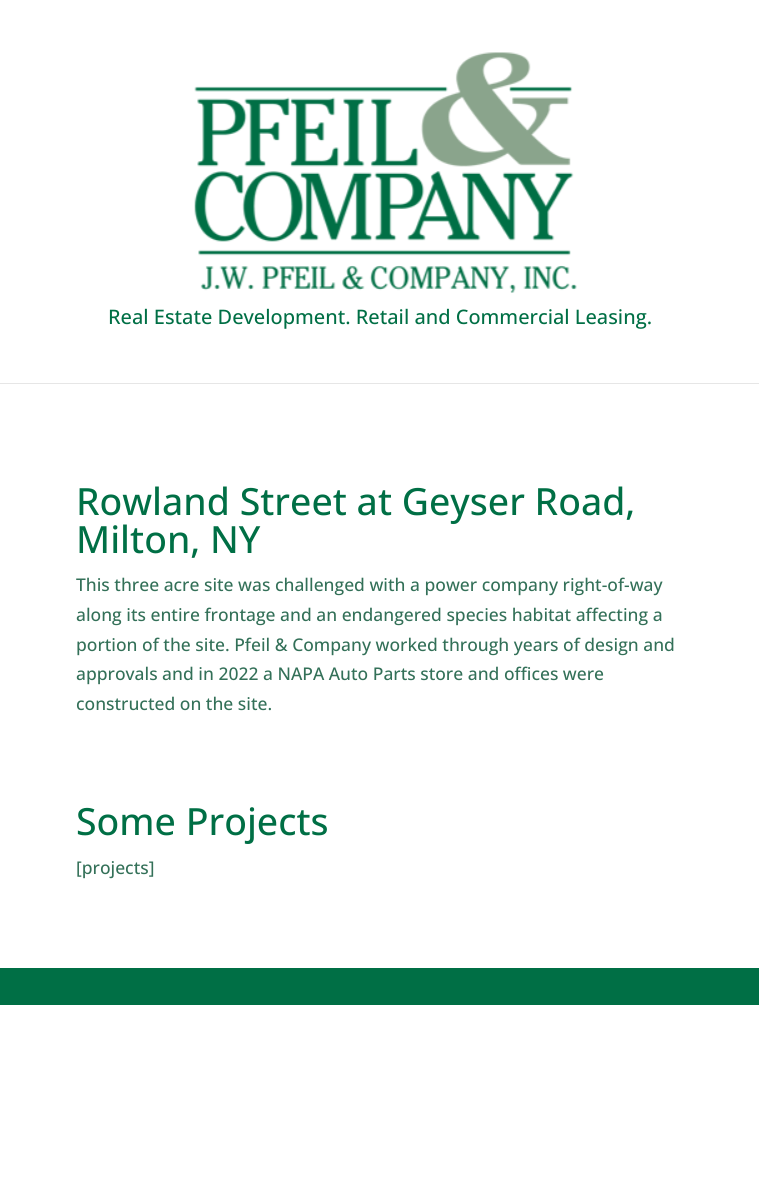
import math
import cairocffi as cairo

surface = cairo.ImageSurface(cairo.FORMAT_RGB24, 759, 1192)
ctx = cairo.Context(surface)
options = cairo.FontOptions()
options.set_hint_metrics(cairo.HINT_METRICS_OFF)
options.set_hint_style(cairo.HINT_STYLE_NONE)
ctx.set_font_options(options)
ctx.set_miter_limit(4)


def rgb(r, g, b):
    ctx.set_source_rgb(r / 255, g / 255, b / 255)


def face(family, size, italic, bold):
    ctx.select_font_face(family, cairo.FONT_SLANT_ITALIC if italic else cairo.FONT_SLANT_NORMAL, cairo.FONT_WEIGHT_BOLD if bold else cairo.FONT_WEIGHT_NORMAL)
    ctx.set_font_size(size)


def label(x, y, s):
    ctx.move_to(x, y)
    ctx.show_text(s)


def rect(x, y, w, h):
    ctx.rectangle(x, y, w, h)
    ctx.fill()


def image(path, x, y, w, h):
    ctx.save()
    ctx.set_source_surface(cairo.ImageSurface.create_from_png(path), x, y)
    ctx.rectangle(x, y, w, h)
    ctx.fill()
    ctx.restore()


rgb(255, 255, 255)
ctx.paint()
rgb(230, 230, 230)
rect(0, 383, 759, 1)
image('image0.png', 194, 52, 383, 241)
face('Open Sans Medium', 20, 0, 0)
rgb(0, 111, 69)
label(108, 324, 'Real Estate Development. Retail and Commercial Leasing.')
face('Open Sans Medium', 37.5, 0, 0)
label(76, 515, 'Rowland Street at Geyser Road,')
label(76, 553, 'Milton, NY')
face('Open Sans Medium', 17.5, 0, 0)
rgb(51, 112, 88)
label(76, 591, 'This three acre site was challenged with a power company right-of-way')
label(76, 621, 'along its entire frontage and an endangered species habitat affecting a')
label(76, 651, 'portion of the site. Pfeil & Company worked through years of design and')
label(76, 680, 'approvals and in 2022 a NAPA Auto Parts store and offices were')
label(76, 710, 'constructed on the site.')
face('Open Sans Medium', 37.5, 0, 0)
rgb(0, 111, 69)
label(76, 835, 'Some Projects')
face('Open Sans Medium', 17.5, 0, 0)
rgb(51, 112, 88)
label(76, 874, '[projects]')
rgb(0, 111, 69)
rect(0, 968, 759, 37)
surface.write_to_png('render.png')
